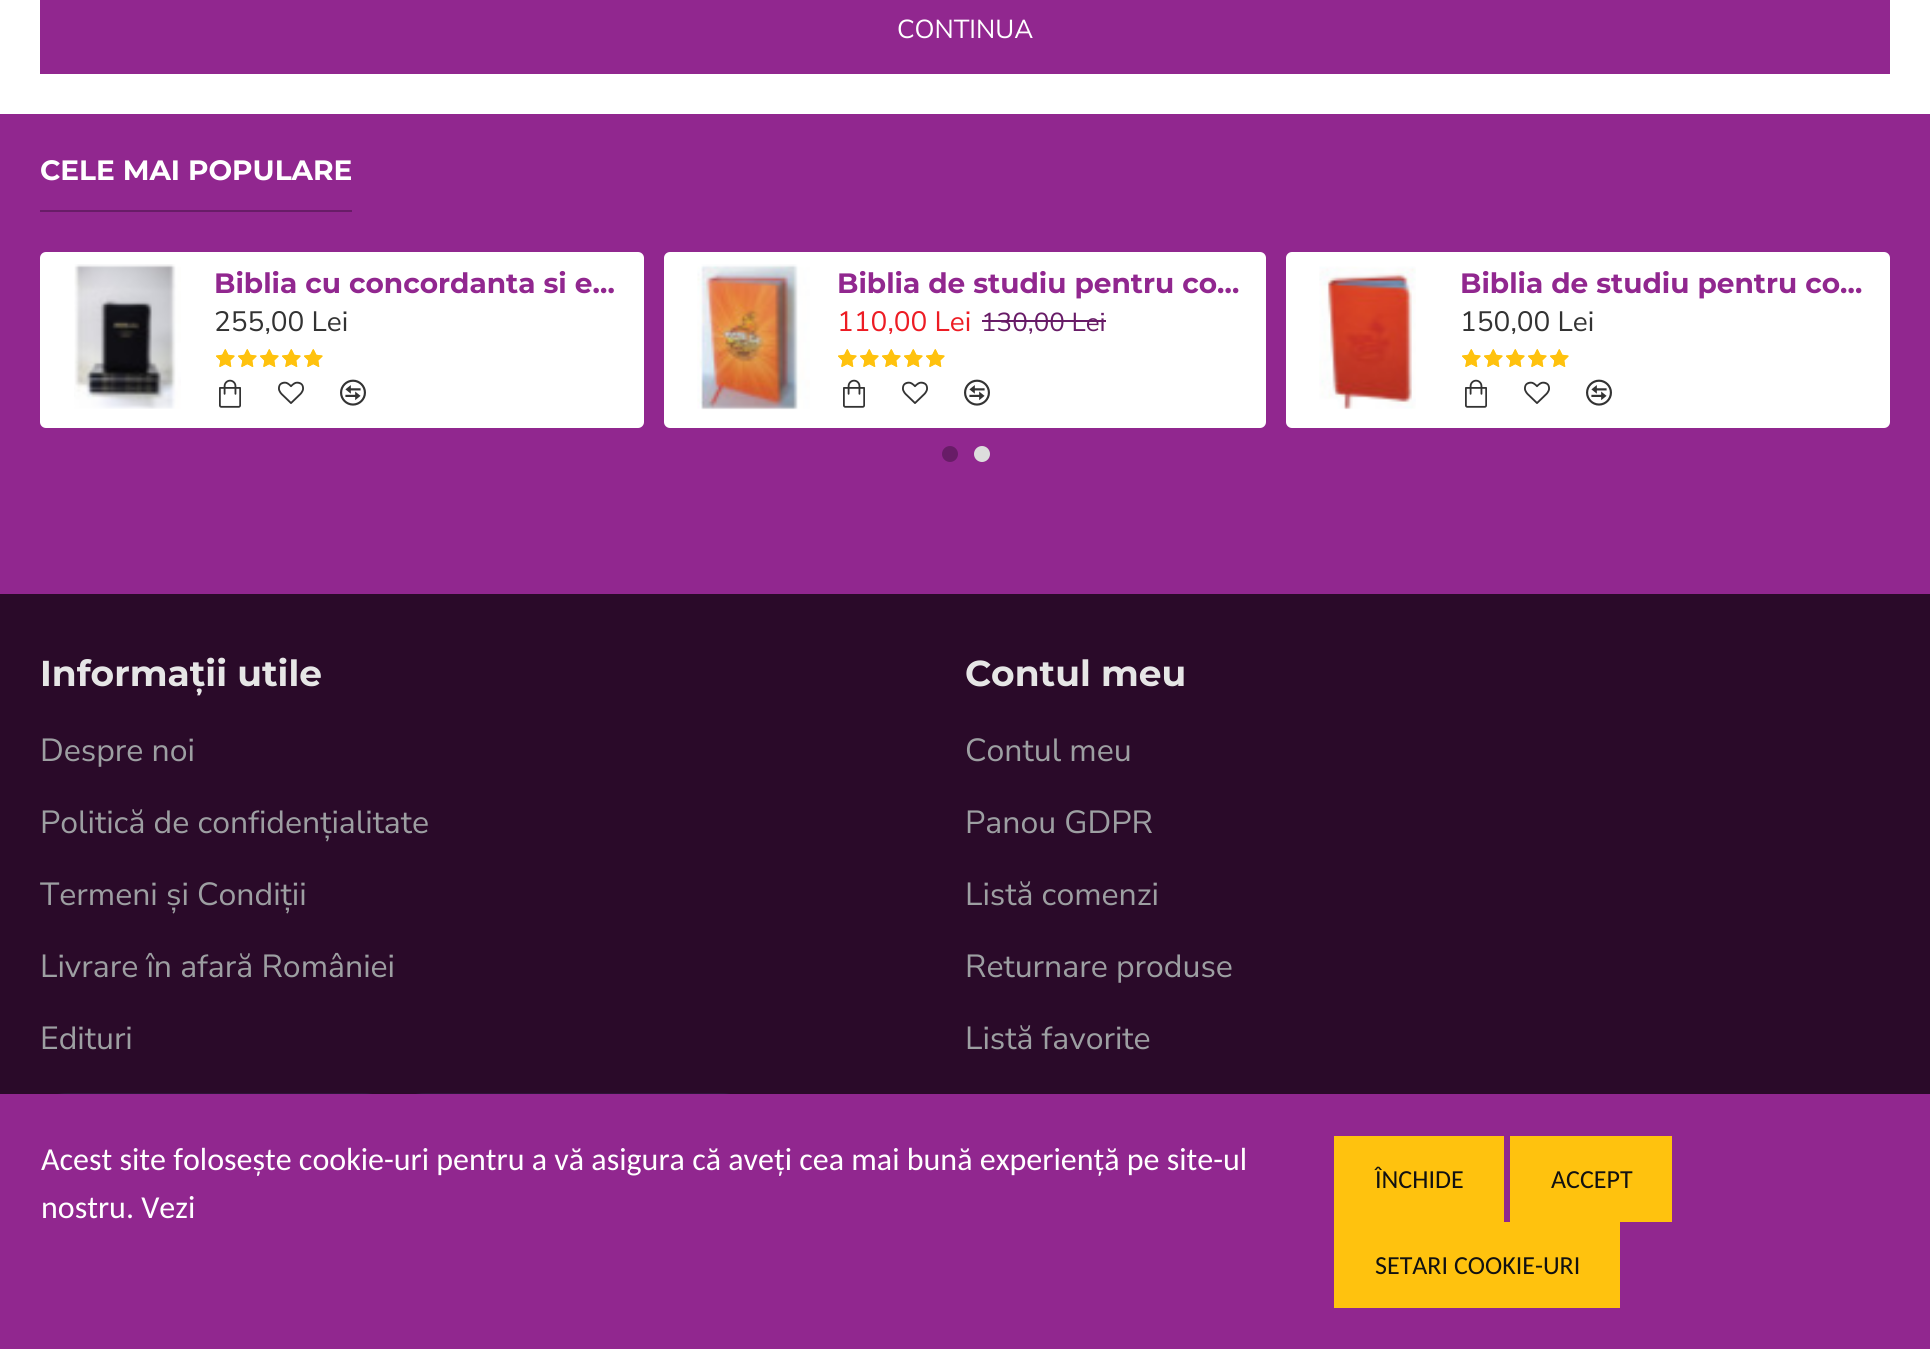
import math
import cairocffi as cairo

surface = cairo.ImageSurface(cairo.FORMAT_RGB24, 1930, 1349)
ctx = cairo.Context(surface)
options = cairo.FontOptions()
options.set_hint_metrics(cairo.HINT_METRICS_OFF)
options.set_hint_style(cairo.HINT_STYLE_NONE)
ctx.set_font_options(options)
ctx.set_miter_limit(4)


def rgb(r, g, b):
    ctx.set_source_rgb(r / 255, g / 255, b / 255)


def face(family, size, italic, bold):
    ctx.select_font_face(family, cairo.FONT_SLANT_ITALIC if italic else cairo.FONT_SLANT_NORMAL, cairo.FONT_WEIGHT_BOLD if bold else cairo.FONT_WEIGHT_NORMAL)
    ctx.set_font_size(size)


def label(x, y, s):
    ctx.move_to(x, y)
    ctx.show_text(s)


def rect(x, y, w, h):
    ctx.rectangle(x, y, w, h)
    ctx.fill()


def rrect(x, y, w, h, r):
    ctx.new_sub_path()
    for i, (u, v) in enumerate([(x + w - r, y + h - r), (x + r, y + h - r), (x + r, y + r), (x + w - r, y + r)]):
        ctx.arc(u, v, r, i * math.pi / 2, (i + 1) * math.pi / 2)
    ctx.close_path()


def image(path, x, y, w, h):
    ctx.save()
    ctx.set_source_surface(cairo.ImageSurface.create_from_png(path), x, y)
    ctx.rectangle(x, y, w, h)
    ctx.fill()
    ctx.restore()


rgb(255, 255, 255)
ctx.paint()
rgb(145, 39, 143)
rect(40, 0, 1850, 74)
face('Nunito Sans', 26, 0, 0)
rgb(255, 255, 255)
label(897, 38, 'CONTINUA')
rgb(42, 10, 41)
rect(0, 594, 1930, 500)
rgb(145, 39, 143)
rect(0, 114, 1930, 480)
rgb(104, 28, 103)
rect(40, 210, 312, 2)
face('Montserrat', 28, 0, 1)
rgb(255, 255, 255)
label(40, 180, 'CELE MAI POPULARE')
rrect(40, 252, 604, 176, 6)
ctx.fill()
image('image0.png', 74, 264, 107, 145)
rgb(145, 39, 143)
label(214, 293, 'Biblia cu concordanta si e…')
face('Nunito Sans', 28, 0, 0)
rgb(51, 51, 51)
label(214, 331, '255,00 Lei')
image('image1.png', 216, 349, 19, 18)
image('image2.png', 216, 349, 19, 18)
image('image1.png', 238, 349, 19, 18)
image('image2.png', 238, 349, 19, 18)
image('image1.png', 260, 349, 19, 18)
image('image2.png', 260, 349, 19, 18)
image('image1.png', 282, 349, 19, 18)
image('image2.png', 282, 349, 19, 18)
image('image1.png', 304, 349, 19, 18)
image('image2.png', 304, 349, 19, 18)
image('image3.png', 219, 379, 22, 29)
image('image4.png', 278, 381, 26, 23)
image('image5.png', 340, 379, 26, 27)
rgb(255, 255, 255)
rrect(664, 252, 602, 176, 6)
ctx.fill()
image('image6.png', 697, 264, 113, 146)
face('Montserrat', 28, 0, 1)
rgb(145, 39, 143)
label(837, 293, 'Biblia de studiu pentru co…')
face('Nunito Sans', 28, 0, 0)
rgb(237, 28, 36)
label(837, 331, '110,00 Lei')
face('Nunito Sans', 26, 0, 0)
rgb(104, 28, 103)
label(981, 331, '130,00 Lei')
rect(982, 320, 124, 2)
image('image1.png', 838, 349, 19, 18)
image('image2.png', 838, 349, 19, 18)
image('image1.png', 860, 349, 19, 18)
image('image2.png', 860, 349, 19, 18)
image('image1.png', 882, 349, 19, 18)
image('image2.png', 882, 349, 19, 18)
image('image1.png', 904, 349, 19, 18)
image('image2.png', 904, 349, 19, 18)
image('image1.png', 926, 349, 19, 18)
image('image2.png', 926, 349, 19, 18)
image('image3.png', 843, 379, 22, 29)
image('image4.png', 902, 381, 26, 23)
image('image5.png', 964, 379, 26, 27)
rgb(255, 255, 255)
rrect(1286, 252, 604, 176, 6)
ctx.fill()
image('image7.png', 1319, 266, 97, 144)
face('Montserrat', 28, 0, 1)
rgb(145, 39, 143)
label(1460, 293, 'Biblia de studiu pentru co…')
face('Nunito Sans', 28, 0, 0)
rgb(51, 51, 51)
label(1460, 331, '150,00 Lei')
image('image1.png', 1462, 349, 19, 18)
image('image2.png', 1462, 349, 19, 18)
image('image1.png', 1484, 349, 19, 18)
image('image2.png', 1484, 349, 19, 18)
image('image1.png', 1506, 349, 19, 18)
image('image2.png', 1506, 349, 19, 18)
image('image1.png', 1528, 349, 19, 18)
image('image2.png', 1528, 349, 19, 18)
image('image1.png', 1550, 349, 19, 18)
image('image2.png', 1550, 349, 19, 18)
image('image3.png', 1465, 379, 22, 29)
image('image4.png', 1524, 381, 26, 23)
image('image5.png', 1586, 379, 26, 27)
rgb(104, 28, 103)
ctx.arc(950, 454, 8, 0, 2 * math.pi)
ctx.fill()
rgb(221, 221, 221)
ctx.arc(982, 454, 8, 0, 2 * math.pi)
ctx.fill()
face('Montserrat', 36, 0, 1)
rgb(230, 230, 230)
label(40, 686, 'Informații utile')
face('Nunito Sans', 32, 0, 0)
rgb(157, 159, 162)
label(40, 761, 'Despre noi')
label(40, 833, 'Politică de confidențialitate')
label(40, 905, 'Termeni și Condiții')
label(40, 977, 'Livrare în afară României')
label(40, 1049, 'Edituri')
image('image8.png', 58, 1093, 314, 1)
image('image8.png', 416, 1093, 314, 1)
face('Montserrat', 36, 0, 1)
rgb(230, 230, 230)
label(965, 686, 'Contul meu')
face('Nunito Sans', 32, 0, 0)
rgb(157, 159, 162)
label(965, 761, 'Contul meu')
label(965, 833, 'Panou GDPR')
label(965, 905, 'Listă comenzi')
label(965, 977, 'Returnare produse')
label(965, 1049, 'Listă favorite')
rgb(145, 39, 143)
rect(0, 1094, 1930, 255)
face('Carlito', 32, 0, 0)
rgb(255, 255, 255)
label(41, 1170, 'Acest site folosește cookie-uri pentru a vă asigura că aveți cea mai bună experiență pe site-ul')
label(41, 1218, 'nostru. Vezi')
rgb(255, 194, 14)
rect(1334, 1136, 170, 86)
face('Carlito', 26, 0, 0)
rgb(17, 17, 17)
label(1375, 1188, 'ÎNCHIDE')
rgb(255, 194, 14)
rect(1510, 1136, 162, 86)
rgb(17, 17, 17)
label(1551, 1188, 'ACCEPT')
rgb(255, 194, 14)
rect(1334, 1222, 286, 86)
rgb(17, 17, 17)
label(1375, 1274, 'SETARI COOKIE-URI')
surface.write_to_png('render.png')
